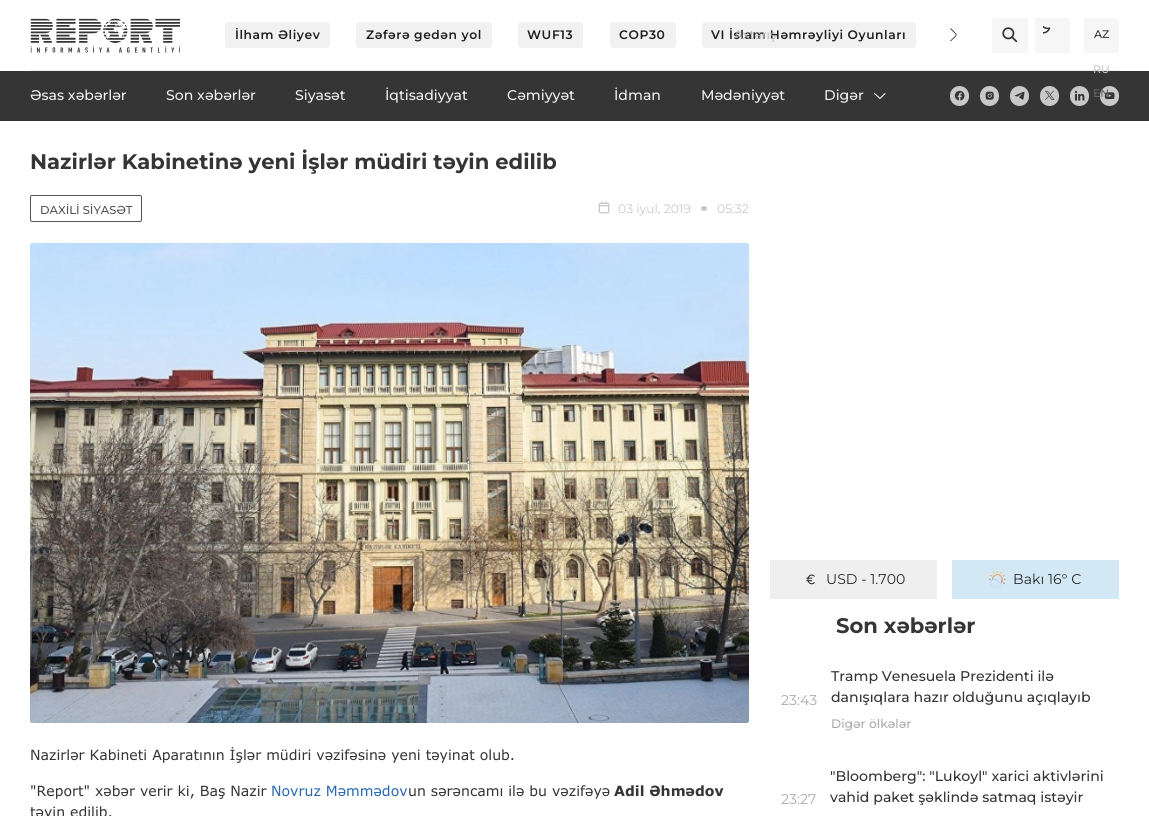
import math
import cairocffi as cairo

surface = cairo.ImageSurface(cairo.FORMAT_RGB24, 1149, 816)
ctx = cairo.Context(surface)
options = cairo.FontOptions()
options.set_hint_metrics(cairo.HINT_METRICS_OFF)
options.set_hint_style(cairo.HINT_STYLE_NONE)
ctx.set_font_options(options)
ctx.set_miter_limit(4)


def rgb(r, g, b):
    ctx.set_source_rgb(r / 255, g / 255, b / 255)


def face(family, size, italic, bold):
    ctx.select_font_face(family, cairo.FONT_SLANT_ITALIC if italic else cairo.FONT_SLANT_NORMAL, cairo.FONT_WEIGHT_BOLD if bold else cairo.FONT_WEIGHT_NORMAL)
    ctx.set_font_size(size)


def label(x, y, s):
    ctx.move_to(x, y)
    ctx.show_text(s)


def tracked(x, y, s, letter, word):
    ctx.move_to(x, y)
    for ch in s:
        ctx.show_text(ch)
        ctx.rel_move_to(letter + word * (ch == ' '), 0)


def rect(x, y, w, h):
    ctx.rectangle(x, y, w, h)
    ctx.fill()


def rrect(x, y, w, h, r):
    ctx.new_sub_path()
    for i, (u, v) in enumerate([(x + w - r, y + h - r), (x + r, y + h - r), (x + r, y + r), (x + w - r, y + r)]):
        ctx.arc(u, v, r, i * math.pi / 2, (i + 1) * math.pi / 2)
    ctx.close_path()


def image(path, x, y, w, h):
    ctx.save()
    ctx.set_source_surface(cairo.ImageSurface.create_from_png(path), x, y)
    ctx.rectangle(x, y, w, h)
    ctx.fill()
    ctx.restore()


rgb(255, 255, 255)
ctx.paint()
rgb(239, 239, 239)
rect(30, 70, 1089, 1)
image('image0.png', 30, 18, 150, 35)
rgb(241, 241, 241)
rrect(225, 22, 105, 26, 3)
ctx.fill()
face('Montserrat SemiBold', 12.3, 0, 0)
rgb(32, 32, 32)
tracked(235, 39, 'İlham Əliyev', 0.55, 0)
rgb(241, 241, 241)
rrect(356, 22, 136, 26, 3)
ctx.fill()
rgb(32, 32, 32)
tracked(366, 39, 'Zəfərə gedən yol', 0.55, 0)
rgb(241, 241, 241)
rrect(518, 22, 65, 26, 3)
ctx.fill()
rgb(32, 32, 32)
tracked(527, 39, 'WUF13', 0.55, 0)
rgb(241, 241, 241)
rrect(610, 22, 66, 26, 3)
ctx.fill()
rgb(32, 32, 32)
tracked(619, 39, 'COP30', 0.55, 0)
rgb(241, 241, 241)
rrect(702, 22, 214, 26, 3)
ctx.fill()
rgb(32, 32, 32)
tracked(711, 39, 'VI İslam Həmrəyliyi Oyunları', 0.55, 0)
ctx.new_path()
ctx.move_to(950.5, 28.5)
ctx.curve_to(958, 36.5, 958, 33.5, 950.5, 41)
rgb(53, 53, 53)
ctx.set_line_width(0.9)
ctx.stroke()
face('Montserrat', 12.3, 0, 0)
rgb(171, 171, 171)
label(734, 39, 'Axtarış')
rgb(246, 246, 246)
rrect(992, 18, 36, 35, 2)
ctx.fill()
image('image1.png', 1002, 27, 16, 16)
rrect(1035, 18, 35, 35, 2)
ctx.fill()
image('image2.png', 1043, 26, 8, 8)
rrect(1084, 18, 35, 35, 2)
ctx.fill()
face('Montserrat Medium', 11, 0, 0)
rgb(53, 53, 53)
label(1094, 38, 'AZ')
rect(0, 71, 1149, 50)
rgb(201, 201, 201)
label(1093, 73, 'RU')
rrect(1100, 86, 19, 20, 9.5)
ctx.fill()
image('image8.png', 1104, 92, 11, 8)
rgb(102, 102, 102)
label(1093, 97, 'EN')
face('Montserrat Medium', 14.1, 0, 0)
rgb(239, 239, 239)
label(30, 100, 'Əsas xəbərlər')
label(166, 100, 'Son xəbərlər')
label(295, 100, 'Siyasət')
label(385, 100, 'İqtisadiyyat')
label(507, 100, 'Cəmiyyət')
label(614, 100, 'İdman')
label(701, 100, 'Mədəniyyət')
label(824, 100, 'Digər')
ctx.new_path()
ctx.move_to(885, 93.5)
ctx.line_to(880, 98.5)
ctx.line_to(874.5, 93.5)
ctx.set_line_width(1.1)
ctx.set_line_cap(cairo.LINE_CAP_ROUND)
ctx.set_line_join(cairo.LINE_JOIN_ROUND)
ctx.stroke()
rgb(201, 201, 201)
rrect(950, 86, 19, 20, 9.5)
ctx.fill()
image('image3.png', 954, 90, 11, 11)
rrect(980, 86, 19, 20, 9.5)
ctx.fill()
image('image4.png', 985, 91, 9, 9)
rrect(1010, 86, 19, 20, 9.5)
ctx.fill()
image('image5.png', 1014, 91, 11, 9)
rrect(1040, 86, 19, 20, 9.5)
ctx.fill()
image('image6.png', 1045, 90, 10, 10)
rrect(1070, 86, 19, 20, 9.5)
ctx.fill()
image('image7.png', 1074, 90, 11, 11)
face('Montserrat', 21.1, 0, 1)
rgb(53, 53, 53)
label(30, 169, 'Nazirlər Kabinetinə yeni İşlər müdiri təyin edilib')
rrect(30.5, 195.5, 111, 26, 1.5)
rgb(83, 83, 83)
ctx.set_line_width(1)
ctx.set_line_cap(cairo.LINE_CAP_BUTT)
ctx.set_line_join(cairo.LINE_JOIN_MITER)
ctx.stroke()
face('Montserrat Medium', 11.5, 0, 0)
label(40, 214, 'DAXİLİ SİYASƏT')
image('image9.png', 598, 201, 12, 13)
face('Montserrat', 12.3, 0, 0)
rgb(201, 201, 201)
label(618, 213, '03 iyul, 2019')
rrect(701, 206, 6, 5, 2.5)
ctx.fill()
label(717, 213, '05:32')
image('image10.png', 30, 243, 719, 480)
face('Verdana', 14.1, 0, 0)
rgb(53, 53, 53)
label(30, 760, 'Nazirlər Kabineti Aparatının İşlər müdiri vəzifəsinə yeni təyinat olub.')
label(30, 796, '"Report" xəbər verir ki, Baş Nazir')
rgb(40, 103, 178)
label(271, 796, 'Novruz Məmmədov')
rgb(53, 53, 53)
label(408, 796, 'un sərəncamı ilə bu vəzifəyə')
face('Verdana', 14.1, 0, 1)
label(614, 796, 'Adil Əhmədov')
face('Verdana', 14.1, 0, 0)
label(30, 817, 'təyin edilib.')
rgb(239, 239, 239)
rect(770, 560, 167, 39)
image('image11.png', 806, 574, 9, 11)
face('Montserrat', 14.1, 0, 0)
rgb(42, 42, 42)
label(826, 584, 'USD - 1.700')
rgb(210, 232, 245)
rect(952, 560, 167, 39)
image('image12.png', 989, 571, 17, 17)
rgb(42, 42, 42)
label(1013, 584, 'Bakı 16° C')
face('Montserrat', 21.1, 0, 1)
rgb(53, 53, 53)
label(836, 633, 'Son xəbərlər')
face('Montserrat', 14.1, 0, 0)
rgb(171, 171, 171)
label(781, 705, '23:43')
face('Montserrat Medium', 14.1, 0, 0)
rgb(53, 53, 53)
label(831, 681, 'Tramp Venesuela Prezidenti ilə')
label(831, 702, 'danışıqlara hazır olduğunu açıqlayıb')
face('Montserrat Medium', 12.3, 0, 0)
rgb(171, 171, 171)
label(831, 728, 'Digər ölkələr')
face('Montserrat', 14.1, 0, 0)
label(781, 804, '23:27')
face('Montserrat Medium', 14.1, 0, 0)
rgb(53, 53, 53)
label(830, 781, '"Bloomberg": "Lukoyl" xarici aktivlərini')
label(830, 802, 'vahid paket şəklində satmaq istəyir')
surface.write_to_png('render.png')
